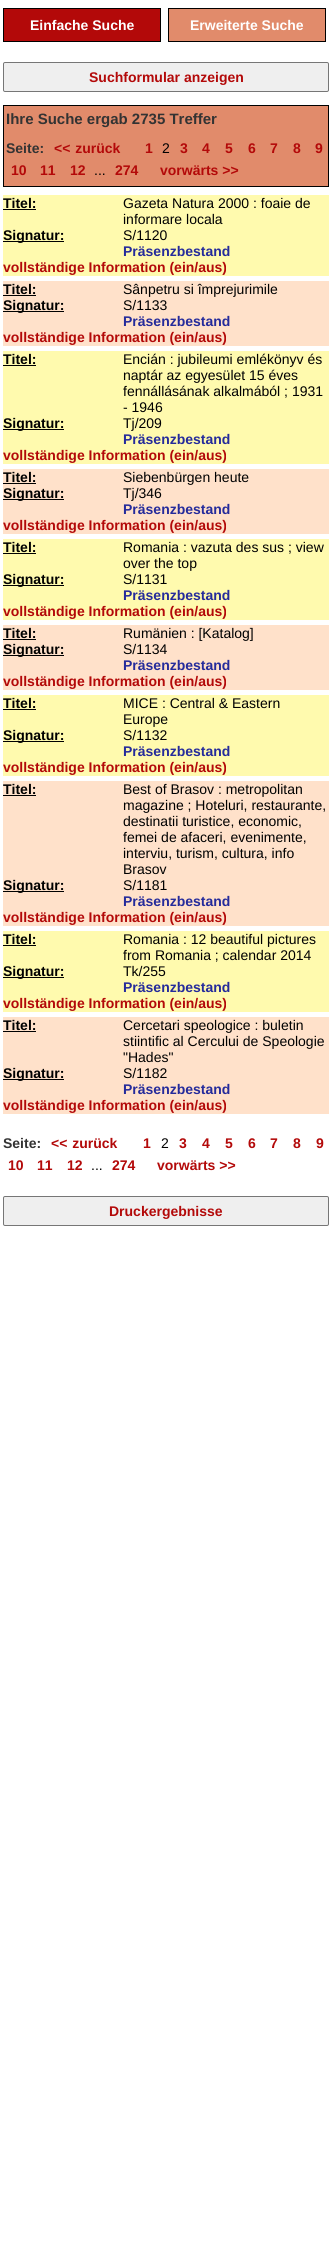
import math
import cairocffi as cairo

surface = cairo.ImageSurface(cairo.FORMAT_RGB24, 332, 2264)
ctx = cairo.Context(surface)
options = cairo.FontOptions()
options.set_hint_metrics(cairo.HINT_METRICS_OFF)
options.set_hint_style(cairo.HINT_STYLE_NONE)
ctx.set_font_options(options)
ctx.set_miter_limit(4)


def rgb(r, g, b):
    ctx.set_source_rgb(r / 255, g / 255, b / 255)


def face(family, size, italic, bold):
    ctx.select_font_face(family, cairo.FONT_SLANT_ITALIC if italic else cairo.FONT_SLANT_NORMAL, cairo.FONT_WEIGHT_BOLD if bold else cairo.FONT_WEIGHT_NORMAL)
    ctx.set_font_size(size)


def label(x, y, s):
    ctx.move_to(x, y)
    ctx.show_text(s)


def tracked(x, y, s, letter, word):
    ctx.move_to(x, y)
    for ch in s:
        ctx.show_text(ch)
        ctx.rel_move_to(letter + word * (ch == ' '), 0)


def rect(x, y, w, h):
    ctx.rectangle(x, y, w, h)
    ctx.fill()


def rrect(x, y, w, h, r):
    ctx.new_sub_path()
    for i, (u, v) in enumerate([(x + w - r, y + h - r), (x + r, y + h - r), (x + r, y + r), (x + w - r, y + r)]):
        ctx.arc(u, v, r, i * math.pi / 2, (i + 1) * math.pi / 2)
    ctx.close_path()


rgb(255, 255, 255)
ctx.paint()
rgb(179, 9, 9)
ctx.rectangle(3.5, 8.5, 157, 33)
ctx.fill_preserve()
rgb(0, 0, 0)
ctx.set_line_width(1)
ctx.stroke()
face('Liberation Sans', 14, 0, 1)
rgb(255, 255, 255)
label(30, 30, 'Einfache Suche')
rgb(225, 139, 107)
ctx.rectangle(168.5, 8.5, 157, 33)
ctx.fill_preserve()
rgb(0, 0, 0)
ctx.stroke()
rgb(255, 255, 255)
label(190, 30, 'Erweiterte Suche')
rgb(239, 239, 239)
rrect(3.5, 62.5, 325, 29, 1.5)
ctx.fill_preserve()
rgb(118, 118, 118)
ctx.stroke()
rgb(179, 9, 9)
label(89, 82, 'Suchformular anzeigen')
rgb(225, 139, 107)
ctx.rectangle(3.5, 105.5, 325, 81)
ctx.fill_preserve()
rgb(0, 0, 0)
ctx.stroke()
face('Liberation Sans', 15, 0, 1)
rgb(51, 51, 51)
label(6, 124, 'Ihre Suche ergab 2735 Treffer')
face('Liberation Sans', 14, 0, 1)
label(6, 153, 'Seite:')
rgb(179, 9, 9)
tracked(54, 153, '<< zurück', 0, 1)
label(145, 153, '1')
face('Liberation Sans', 14, 0, 0)
rgb(0, 0, 0)
label(162, 153, '2')
face('Liberation Sans', 14, 0, 1)
rgb(179, 9, 9)
label(180, 153, '3')
label(202, 153, '4')
label(225, 153, '5')
label(248, 153, '6')
label(270, 153, '7')
label(293, 153, '8')
label(315, 153, '9')
label(11, 175, '10')
label(40, 175, '11')
label(70, 175, '12')
face('Liberation Sans', 14, 0, 0)
rgb(0, 0, 0)
label(94, 175, '...')
face('Liberation Sans', 14, 0, 1)
rgb(179, 9, 9)
label(115, 175, '274')
label(160, 175, 'vorwärts >>')
rgb(255, 250, 174)
rect(3, 195, 326, 81)
rgb(0, 0, 0)
label(3, 208, 'Titel:')
rect(3, 209, 33, 1)
face('Liberation Sans', 14, 0, 0)
label(123, 208, 'Gazeta Natura 2000 : foaie de')
label(123, 224, 'informare locala')
rect(3, 241, 61, 1)
face('Liberation Sans', 14, 0, 1)
label(3, 240, 'Signatur:')
face('Liberation Sans', 14, 0, 0)
label(123, 240, 'S/1120')
face('Liberation Sans', 14, 0, 1)
rgb(37, 43, 155)
label(123, 256, 'Präsenzbestand')
rgb(179, 9, 9)
label(3, 272, 'vollständige Information (ein/aus)')
rgb(255, 225, 202)
rect(3, 281, 326, 65)
rgb(0, 0, 0)
label(3, 294, 'Titel:')
rect(3, 295, 33, 1)
face('Liberation Sans', 14, 0, 0)
label(123, 294, 'Sânpetru si împrejurimile')
rect(3, 311, 61, 1)
face('Liberation Sans', 14, 0, 1)
label(3, 310, 'Signatur:')
face('Liberation Sans', 14, 0, 0)
label(123, 310, 'S/1133')
face('Liberation Sans', 14, 0, 1)
rgb(37, 43, 155)
label(123, 326, 'Präsenzbestand')
rgb(179, 9, 9)
label(3, 342, 'vollständige Information (ein/aus)')
rgb(255, 250, 174)
rect(3, 351, 326, 113)
rgb(0, 0, 0)
label(3, 364, 'Titel:')
rect(3, 365, 33, 1)
face('Liberation Sans', 14, 0, 0)
label(123, 364, 'Encián : jubileumi emlékönyv és')
label(123, 380, 'naptár az egyesület 15 éves')
label(123, 396, 'fennállásának alkalmából ; 1931')
label(123, 412, '- 1946')
rect(3, 429, 61, 1)
face('Liberation Sans', 14, 0, 1)
label(3, 428, 'Signatur:')
face('Liberation Sans', 14, 0, 0)
label(123, 428, 'Tj/209')
face('Liberation Sans', 14, 0, 1)
rgb(37, 43, 155)
label(123, 444, 'Präsenzbestand')
rgb(179, 9, 9)
label(3, 460, 'vollständige Information (ein/aus)')
rgb(255, 225, 202)
rect(3, 469, 326, 65)
rgb(0, 0, 0)
label(3, 482, 'Titel:')
rect(3, 483, 33, 1)
face('Liberation Sans', 14, 0, 0)
label(123, 482, 'Siebenbürgen heute')
rect(3, 499, 61, 1)
face('Liberation Sans', 14, 0, 1)
label(3, 498, 'Signatur:')
face('Liberation Sans', 14, 0, 0)
label(123, 498, 'Tj/346')
face('Liberation Sans', 14, 0, 1)
rgb(37, 43, 155)
label(123, 514, 'Präsenzbestand')
rgb(179, 9, 9)
label(3, 530, 'vollständige Information (ein/aus)')
rgb(255, 250, 174)
rect(3, 539, 326, 81)
rgb(0, 0, 0)
label(3, 552, 'Titel:')
rect(3, 553, 33, 1)
face('Liberation Sans', 14, 0, 0)
label(123, 552, 'Romania : vazuta des sus ; view')
label(123, 568, 'over the top')
rect(3, 585, 61, 1)
face('Liberation Sans', 14, 0, 1)
label(3, 584, 'Signatur:')
face('Liberation Sans', 14, 0, 0)
label(123, 584, 'S/1131')
face('Liberation Sans', 14, 0, 1)
rgb(37, 43, 155)
label(123, 600, 'Präsenzbestand')
rgb(179, 9, 9)
label(3, 616, 'vollständige Information (ein/aus)')
rgb(255, 225, 202)
rect(3, 625, 326, 65)
rgb(0, 0, 0)
label(3, 638, 'Titel:')
rect(3, 639, 33, 1)
face('Liberation Sans', 14, 0, 0)
label(123, 638, 'Rumänien : [Katalog]')
rect(3, 655, 61, 1)
face('Liberation Sans', 14, 0, 1)
label(3, 654, 'Signatur:')
face('Liberation Sans', 14, 0, 0)
label(123, 654, 'S/1134')
face('Liberation Sans', 14, 0, 1)
rgb(37, 43, 155)
label(123, 670, 'Präsenzbestand')
rgb(179, 9, 9)
label(3, 686, 'vollständige Information (ein/aus)')
rgb(255, 250, 174)
rect(3, 695, 326, 81)
rgb(0, 0, 0)
label(3, 708, 'Titel:')
rect(3, 709, 33, 1)
face('Liberation Sans', 14, 0, 0)
label(123, 708, 'MICE : Central & Eastern')
label(123, 724, 'Europe')
rect(3, 741, 61, 1)
face('Liberation Sans', 14, 0, 1)
label(3, 740, 'Signatur:')
face('Liberation Sans', 14, 0, 0)
label(123, 740, 'S/1132')
face('Liberation Sans', 14, 0, 1)
rgb(37, 43, 155)
label(123, 756, 'Präsenzbestand')
rgb(179, 9, 9)
label(3, 772, 'vollständige Information (ein/aus)')
rgb(255, 225, 202)
rect(3, 781, 326, 145)
rgb(0, 0, 0)
label(3, 794, 'Titel:')
rect(3, 795, 33, 1)
face('Liberation Sans', 14, 0, 0)
label(123, 794, 'Best of Brasov : metropolitan')
label(123, 810, 'magazine ; Hoteluri, restaurante,')
label(123, 826, 'destinatii turistice, economic,')
label(123, 842, 'femei de afaceri, evenimente,')
label(123, 858, 'interviu, turism, cultura, info')
label(123, 874, 'Brasov')
rect(3, 891, 61, 1)
face('Liberation Sans', 14, 0, 1)
label(3, 890, 'Signatur:')
face('Liberation Sans', 14, 0, 0)
label(123, 890, 'S/1181')
face('Liberation Sans', 14, 0, 1)
rgb(37, 43, 155)
label(123, 906, 'Präsenzbestand')
rgb(179, 9, 9)
label(3, 922, 'vollständige Information (ein/aus)')
rgb(255, 250, 174)
rect(3, 931, 326, 81)
rgb(0, 0, 0)
label(3, 944, 'Titel:')
rect(3, 945, 33, 1)
face('Liberation Sans', 14, 0, 0)
label(123, 944, 'Romania : 12 beautiful pictures')
label(123, 960, 'from Romania ; calendar 2014')
rect(3, 977, 61, 1)
face('Liberation Sans', 14, 0, 1)
label(3, 976, 'Signatur:')
face('Liberation Sans', 14, 0, 0)
label(123, 976, 'Tk/255')
face('Liberation Sans', 14, 0, 1)
rgb(37, 43, 155)
label(123, 992, 'Präsenzbestand')
rgb(179, 9, 9)
label(3, 1008, 'vollständige Information (ein/aus)')
rgb(255, 225, 202)
rect(3, 1017, 326, 97)
rgb(0, 0, 0)
label(3, 1030, 'Titel:')
rect(3, 1031, 33, 1)
face('Liberation Sans', 14, 0, 0)
label(123, 1030, 'Cercetari speologice : buletin')
label(123, 1046, 'stiintific al Cercului de Speologie')
label(123, 1062, '"Hades"')
rect(3, 1079, 61, 1)
face('Liberation Sans', 14, 0, 1)
label(3, 1078, 'Signatur:')
face('Liberation Sans', 14, 0, 0)
label(123, 1078, 'S/1182')
face('Liberation Sans', 14, 0, 1)
rgb(37, 43, 155)
label(123, 1094, 'Präsenzbestand')
rgb(179, 9, 9)
label(3, 1110, 'vollständige Information (ein/aus)')
rgb(51, 51, 51)
label(3, 1148, 'Seite:')
rgb(179, 9, 9)
tracked(51, 1148, '<< zurück', 0, 1)
label(143, 1148, '1')
face('Liberation Sans', 14, 0, 0)
rgb(0, 0, 0)
label(161, 1148, '2')
face('Liberation Sans', 14, 0, 1)
rgb(179, 9, 9)
label(179, 1148, '3')
label(202, 1148, '4')
label(225, 1148, '5')
label(248, 1148, '6')
label(270, 1148, '7')
label(293, 1148, '8')
label(316, 1148, '9')
label(8, 1170, '10')
label(37, 1170, '11')
label(67, 1170, '12')
face('Liberation Sans', 14, 0, 0)
rgb(0, 0, 0)
label(91, 1170, '...')
face('Liberation Sans', 14, 0, 1)
rgb(179, 9, 9)
label(112, 1170, '274')
label(157, 1170, 'vorwärts >>')
rgb(239, 239, 239)
rrect(3.5, 1196.5, 325, 29, 1.5)
ctx.fill_preserve()
rgb(118, 118, 118)
ctx.stroke()
rgb(179, 9, 9)
label(109, 1216, 'Druckergebnisse')
surface.write_to_png('render.png')
